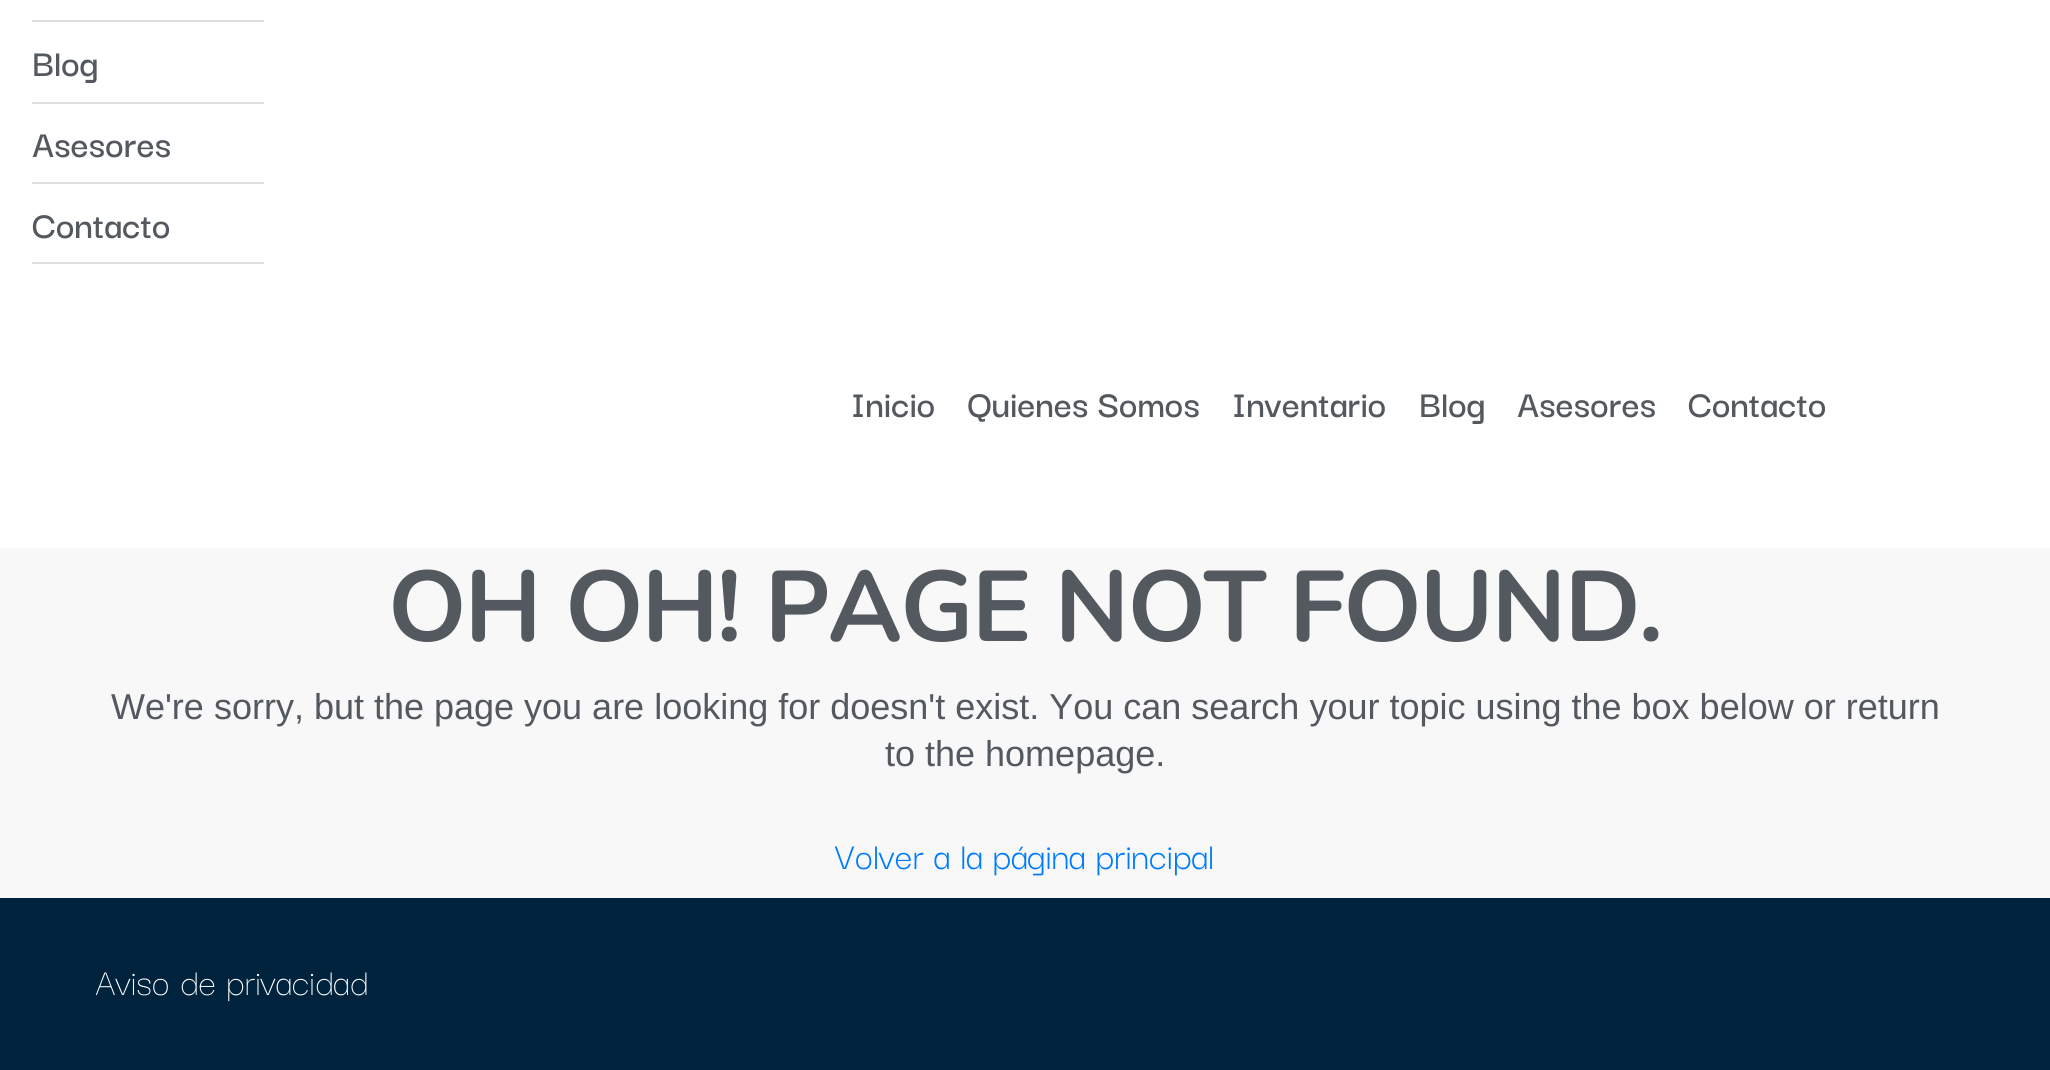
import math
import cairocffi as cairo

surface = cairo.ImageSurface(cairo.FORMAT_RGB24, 2050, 1070)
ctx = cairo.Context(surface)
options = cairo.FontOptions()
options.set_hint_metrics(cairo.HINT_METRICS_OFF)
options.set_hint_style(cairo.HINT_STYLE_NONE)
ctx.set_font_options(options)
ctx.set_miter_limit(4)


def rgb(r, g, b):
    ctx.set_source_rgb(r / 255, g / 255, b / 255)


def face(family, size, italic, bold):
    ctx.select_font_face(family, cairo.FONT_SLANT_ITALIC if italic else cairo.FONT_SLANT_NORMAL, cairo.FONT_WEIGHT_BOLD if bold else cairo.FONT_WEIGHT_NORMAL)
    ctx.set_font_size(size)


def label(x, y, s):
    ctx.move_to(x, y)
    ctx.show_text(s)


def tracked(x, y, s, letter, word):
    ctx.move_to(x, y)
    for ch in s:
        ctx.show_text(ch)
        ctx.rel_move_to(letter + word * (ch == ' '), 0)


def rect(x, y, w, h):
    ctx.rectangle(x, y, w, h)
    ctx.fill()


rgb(248, 248, 248)
ctx.paint()
rgb(255, 255, 255)
rect(0, 0, 2050, 548)
rgb(220, 224, 224)
rect(32, 20, 232, 2)
rect(32, 102, 232, 2)
face('Darker Grotesque SemiBold', 40, 0, 0)
rgb(84, 89, 95)
label(32, 76, 'Blog')
rgb(220, 224, 224)
rect(32, 182, 232, 2)
rgb(84, 89, 95)
label(32, 157, 'Asesores')
rgb(220, 224, 224)
rect(32, 262, 232, 2)
rgb(84, 89, 95)
label(32, 238, 'Contacto')
label(851, 417, 'Inicio')
label(967, 417, 'Quienes Somos')
label(1232, 417, 'Inventario')
label(1419, 417, 'Blog')
label(1517, 417, 'Asesores')
label(1688, 417, 'Contacto')
face('Nunito', 100, 0, 1)
tracked(388, 641, 'OH OH! PAGE NOT FOUND.', -2, 0)
face('Arimo', 36, 0, 0)
label(111, 719, 'We\'re sorry, but the page you are looking for doesn\'t exist. You can search your topic using the box below or return')
label(885, 766, 'to the homepage.')
face('Darker Grotesque', 40, 0, 0)
rgb(0, 123, 255)
label(835, 869, 'Volver a la página principal')
rgb(0, 35, 61)
rect(0, 898, 2050, 172)
face('Darker Grotesque Light', 40, 0, 0)
rgb(255, 255, 255)
label(95, 995, 'Aviso de privacidad')
surface.write_to_png('render.png')
